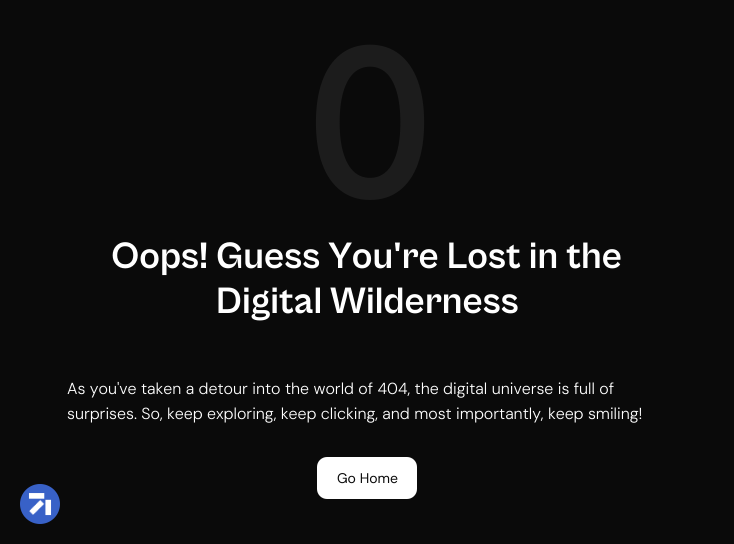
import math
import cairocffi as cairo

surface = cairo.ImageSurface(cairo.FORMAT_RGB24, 734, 544)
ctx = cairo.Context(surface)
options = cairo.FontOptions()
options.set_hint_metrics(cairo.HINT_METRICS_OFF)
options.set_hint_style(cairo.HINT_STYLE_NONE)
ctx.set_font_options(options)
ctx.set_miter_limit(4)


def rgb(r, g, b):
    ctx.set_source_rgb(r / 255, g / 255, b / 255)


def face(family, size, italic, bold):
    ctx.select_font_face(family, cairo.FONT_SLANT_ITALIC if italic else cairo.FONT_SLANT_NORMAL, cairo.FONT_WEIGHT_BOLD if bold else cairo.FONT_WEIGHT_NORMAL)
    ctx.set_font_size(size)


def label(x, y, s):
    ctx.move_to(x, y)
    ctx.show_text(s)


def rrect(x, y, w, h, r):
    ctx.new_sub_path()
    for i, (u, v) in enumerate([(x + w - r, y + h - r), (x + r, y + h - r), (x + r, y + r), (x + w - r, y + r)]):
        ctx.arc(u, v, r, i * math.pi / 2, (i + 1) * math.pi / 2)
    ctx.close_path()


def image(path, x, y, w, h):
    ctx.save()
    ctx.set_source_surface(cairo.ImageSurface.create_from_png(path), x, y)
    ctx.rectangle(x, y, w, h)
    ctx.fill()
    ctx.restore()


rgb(10, 10, 10)
ctx.paint()
face('Inter', 200, 0, 1)
rgb(28, 28, 28)
label(304, 198, '0')
face('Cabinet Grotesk', 38, 0, 1)
rgb(255, 255, 255)
label(111, 268, 'Oops! Guess You\'re Lost in the')
label(216, 313, 'Digital Wilderness')
face('DM Sans Light', 16, 0, 0)
label(67, 394, 'As you\'ve taken a detour into the world of 404, the digital universe is full of')
label(67, 419, 'surprises. So, keep exploring, keep clicking, and most importantly, keep smiling!')
rrect(317, 457, 100, 42, 10)
ctx.fill()
face('DM Sans', 14, 0, 0)
rgb(10, 10, 10)
label(337, 483, 'Go Home')
rgb(56, 97, 199)
ctx.new_path()
ctx.arc(40, 504, 20, 0, 2 * math.pi)
ctx.fill()
image('image0.png', 28, 493, 24, 23)
surface.write_to_png('render.png')
